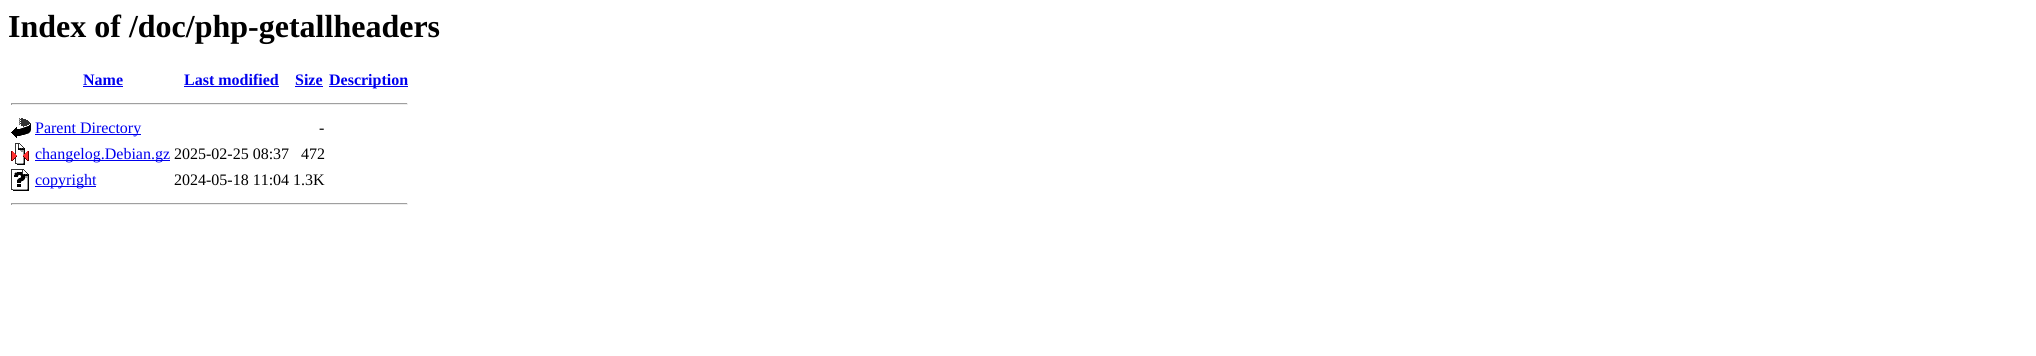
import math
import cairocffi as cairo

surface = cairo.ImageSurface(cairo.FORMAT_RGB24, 2036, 356)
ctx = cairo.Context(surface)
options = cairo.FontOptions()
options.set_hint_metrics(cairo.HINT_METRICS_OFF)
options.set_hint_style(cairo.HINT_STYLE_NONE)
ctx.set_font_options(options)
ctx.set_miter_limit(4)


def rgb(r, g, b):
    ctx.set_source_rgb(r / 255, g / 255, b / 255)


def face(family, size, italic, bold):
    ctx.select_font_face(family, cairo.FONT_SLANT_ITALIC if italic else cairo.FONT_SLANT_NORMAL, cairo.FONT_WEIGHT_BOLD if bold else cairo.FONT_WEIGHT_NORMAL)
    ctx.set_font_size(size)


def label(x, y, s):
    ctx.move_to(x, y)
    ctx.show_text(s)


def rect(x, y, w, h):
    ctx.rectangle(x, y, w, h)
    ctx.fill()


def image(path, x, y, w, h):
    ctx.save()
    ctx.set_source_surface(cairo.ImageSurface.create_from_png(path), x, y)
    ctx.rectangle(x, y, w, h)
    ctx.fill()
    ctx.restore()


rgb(255, 255, 255)
ctx.paint()
face('Liberation Serif', 32, 0, 1)
rgb(0, 0, 0)
label(8, 37, 'Index of /doc/php-getallheaders')
face('Liberation Serif', 16, 0, 1)
rgb(0, 0, 238)
label(83, 85, 'Name')
rect(83, 86, 40, 1)
label(184, 85, 'Last modified')
rect(184, 86, 95, 1)
label(295, 85, 'Size')
rect(295, 86, 28, 1)
rect(329, 86, 79, 1)
label(329, 85, 'Description')
rgb(159, 159, 159)
rect(11, 103, 397, 1)
rgb(238, 238, 238)
rect(407, 103, 1, 2)
rect(11, 104, 397, 1)
rgb(159, 159, 159)
rect(11, 103, 1, 2)
image('image0.png', 11, 118, 20, 20)
rgb(0, 0, 238)
rect(35, 134, 106, 1)
face('Liberation Serif', 16, 0, 0)
label(35, 133, 'Parent Directory')
rgb(0, 0, 0)
label(319, 133, '-')
image('image1.png', 11, 143, 18, 22)
rgb(0, 0, 238)
rect(35, 160, 135, 1)
label(35, 159, 'changelog.Debian.gz')
rgb(0, 0, 0)
label(174, 159, '2025-02-25 08:37')
label(301, 159, '472')
image('image2.png', 11, 169, 18, 22)
rgb(0, 0, 238)
rect(35, 186, 61, 1)
label(35, 185, 'copyright')
rgb(0, 0, 0)
label(174, 185, '2024-05-18 11:04 1.3K')
rgb(159, 159, 159)
rect(11, 203, 397, 1)
rgb(238, 238, 238)
rect(407, 203, 1, 2)
rect(11, 204, 397, 1)
rgb(159, 159, 159)
rect(11, 203, 1, 2)
surface.write_to_png('render.png')
